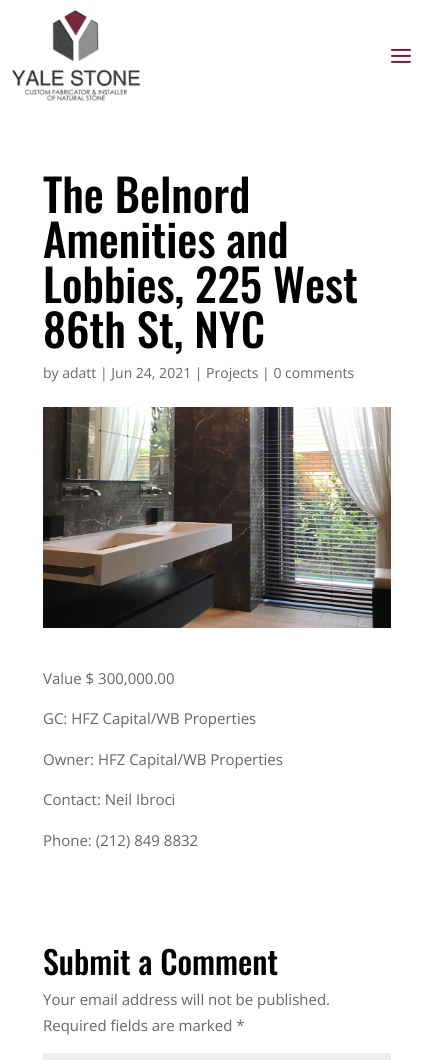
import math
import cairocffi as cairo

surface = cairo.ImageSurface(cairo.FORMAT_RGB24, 434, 1060)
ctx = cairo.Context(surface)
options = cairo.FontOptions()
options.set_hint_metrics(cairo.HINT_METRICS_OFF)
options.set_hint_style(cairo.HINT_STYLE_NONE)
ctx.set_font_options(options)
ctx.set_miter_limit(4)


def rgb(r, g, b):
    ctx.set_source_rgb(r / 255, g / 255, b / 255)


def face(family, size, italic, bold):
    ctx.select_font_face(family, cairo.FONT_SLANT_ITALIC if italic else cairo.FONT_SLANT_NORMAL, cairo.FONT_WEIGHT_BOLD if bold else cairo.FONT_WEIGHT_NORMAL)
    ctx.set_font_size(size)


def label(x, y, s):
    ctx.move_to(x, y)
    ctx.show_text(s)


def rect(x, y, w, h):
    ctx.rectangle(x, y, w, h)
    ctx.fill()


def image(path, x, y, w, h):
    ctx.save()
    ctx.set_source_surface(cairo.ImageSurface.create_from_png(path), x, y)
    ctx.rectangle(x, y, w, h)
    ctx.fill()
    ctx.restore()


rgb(255, 255, 255)
ctx.paint()
image('image0.png', 12, 10, 129, 91)
image('image1.png', 391, 48, 20, 15)
face('Oswald Medium', 45, 0, 0)
rgb(0, 0, 0)
label(43, 213, 'The Belnord')
label(43, 258, 'Amenities and')
label(43, 303, 'Lobbies, 225 West')
label(43, 348, '86th St, NYC')
face('Open Sans', 14, 0, 0)
rgb(102, 102, 102)
label(43, 378, 'by adatt | Jun 24, 2021 | Projects | 0 comments')
image('image2.png', 43, 407, 348, 221)
face('Open Sans', 15, 0, 0)
label(43, 684, 'Value $ 300,000.00')
label(43, 724, 'GC: HFZ Capital/WB Properties')
label(43, 765, 'Owner: HFZ Capital/WB Properties')
label(43, 805, 'Contact: Neil Ibroci')
label(43, 846, 'Phone: (212) 849 8832')
face('Oswald Medium', 32, 0, 0)
rgb(0, 0, 0)
label(43, 975, 'Submit a Comment')
face('Open Sans', 15, 0, 0)
rgb(102, 102, 102)
label(43, 1005, 'Your email address will not be published.')
label(43, 1031, 'Required fields are marked *')
rgb(238, 238, 238)
rect(43, 1053, 348, 7)
surface.write_to_png('render.png')
